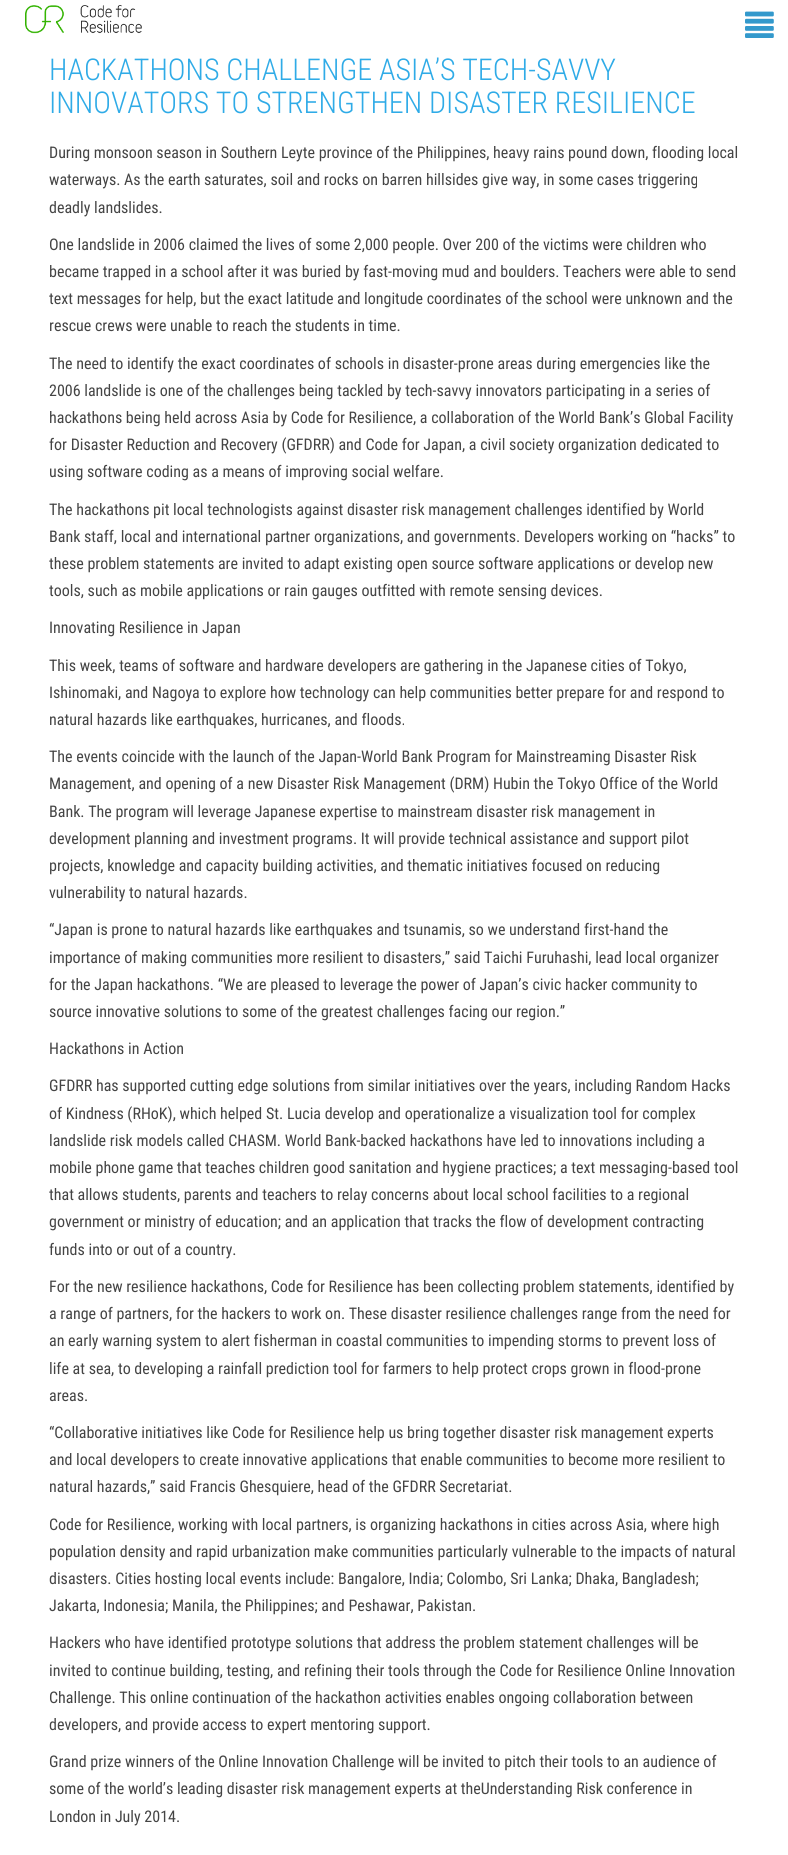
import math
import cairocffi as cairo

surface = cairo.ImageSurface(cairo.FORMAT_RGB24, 788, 1855)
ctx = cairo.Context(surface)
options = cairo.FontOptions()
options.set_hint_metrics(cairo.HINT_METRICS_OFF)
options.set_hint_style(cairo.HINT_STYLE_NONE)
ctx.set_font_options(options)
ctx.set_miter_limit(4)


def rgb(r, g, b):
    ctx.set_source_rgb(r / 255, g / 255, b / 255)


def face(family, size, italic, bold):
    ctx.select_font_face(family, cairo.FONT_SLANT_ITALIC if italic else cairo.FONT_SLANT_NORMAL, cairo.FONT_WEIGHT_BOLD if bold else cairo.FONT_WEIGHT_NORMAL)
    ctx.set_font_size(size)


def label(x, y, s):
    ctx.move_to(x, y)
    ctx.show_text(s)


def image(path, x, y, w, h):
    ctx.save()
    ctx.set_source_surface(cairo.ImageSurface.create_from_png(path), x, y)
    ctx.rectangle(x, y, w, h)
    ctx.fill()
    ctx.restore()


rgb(255, 255, 255)
ctx.paint()
image('image0.png', 25, 5, 117, 29)
image('image1.png', 745, 11, 29, 27)
face('Roboto Condensed Light', 30, 0, 0)
rgb(47, 171, 231)
label(49, 80, 'HACKATHONS CHALLENGE ASIA’S TECH-SAVVY')
label(49, 113, 'INNOVATORS TO STRENGTHEN DISASTER RESILIENCE')
face('Roboto Condensed', 16, 0, 0)
rgb(68, 68, 68)
label(49, 158, 'During monsoon season in Southern Leyte province of the Philippines, heavy rains pound down, flooding local')
label(49, 185, 'waterways. As the earth saturates, soil and rocks on barren hillsides give way, in some cases triggering')
label(49, 213, 'deadly landslides.')
label(49, 250, 'One landslide in 2006 claimed the lives of some 2,000 people. Over 200 of the victims were children who')
label(49, 277, 'became trapped in a school after it was buried by fast-moving mud and boulders. Teachers were able to send')
label(49, 304, 'text messages for help, but the exact latitude and longitude coordinates of the school were unknown and the')
label(49, 331, 'rescue crews were unable to reach the students in time.')
label(49, 369, 'The need to identify the exact coordinates of schools in disaster-prone areas during emergencies like the')
label(49, 396, '2006 landslide is one of the challenges being tackled by tech-savvy innovators participating in a series of')
label(49, 423, 'hackathons being held across Asia by Code for Resilience, a collaboration of the World Bank’s Global Facility')
label(49, 450, 'for Disaster Reduction and Recovery (GFDRR) and Code for Japan, a civil society organization dedicated to')
label(49, 477, 'using software coding as a means of improving social welfare.')
label(49, 515, 'The hackathons pit local technologists against disaster risk management challenges identified by World')
label(49, 542, 'Bank staff, local and international partner organizations, and governments. Developers working on “hacks” to')
label(49, 569, 'these problem statements are invited to adapt existing open source software applications or develop new')
label(49, 596, 'tools, such as mobile applications or rain gauges outfitted with remote sensing devices.')
label(49, 633, 'Innovating Resilience in Japan')
label(49, 671, 'This week, teams of software and hardware developers are gathering in the Japanese cities of Tokyo,')
label(49, 698, 'Ishinomaki, and Nagoya to explore how technology can help communities better prepare for and respond to')
label(49, 725, 'natural hazards like earthquakes, hurricanes, and floods.')
label(49, 762, 'The events coincide with the launch of the Japan-World Bank Program for Mainstreaming Disaster Risk')
label(49, 789, 'Management, and opening of a new Disaster Risk Management (DRM) Hubin the Tokyo Office of the World')
label(49, 817, 'Bank. The program will leverage Japanese expertise to mainstream disaster risk management in')
label(49, 844, 'development planning and investment programs. It will provide technical assistance and support pilot')
label(49, 871, 'projects, knowledge and capacity building activities, and thematic initiatives focused on reducing')
label(49, 898, 'vulnerability to natural hazards.')
label(49, 935, '“Japan is prone to natural hazards like earthquakes and tsunamis, so we understand first-hand the')
label(49, 963, 'importance of making communities more resilient to disasters,” said Taichi Furuhashi, lead local organizer')
label(49, 990, 'for the Japan hackathons. “We are pleased to leverage the power of Japan’s civic hacker community to')
label(49, 1017, 'source innovative solutions to some of the greatest challenges facing our region.”')
label(49, 1054, 'Hackathons in Action')
label(49, 1091, 'GFDRR has supported cutting edge solutions from similar initiatives over the years, including Random Hacks')
label(49, 1119, 'of Kindness (RHoK), which helped St. Lucia develop and operationalize a visualization tool for complex')
label(49, 1146, 'landslide risk models called CHASM. World Bank-backed hackathons have led to innovations including a')
label(49, 1173, 'mobile phone game that teaches children good sanitation and hygiene practices; a text messaging-based tool')
label(49, 1200, 'that allows students, parents and teachers to relay concerns about local school facilities to a regional')
label(49, 1227, 'government or ministry of education; and an application that tracks the flow of development contracting')
label(49, 1255, 'funds into or out of a country.')
label(49, 1292, 'For the new resilience hackathons, Code for Resilience has been collecting problem statements, identified by')
label(49, 1319, 'a range of partners, for the hackers to work on. These disaster resilience challenges range from the need for')
label(49, 1346, 'an early warning system to alert fisherman in coastal communities to impending storms to prevent loss of')
label(49, 1374, 'life at sea, to developing a rainfall prediction tool for farmers to help protect crops grown in flood-prone')
label(49, 1401, 'areas.')
label(49, 1438, '“Collaborative initiatives like Code for Resilience help us bring together disaster risk management experts')
label(49, 1465, 'and local developers to create innovative applications that enable communities to become more resilient to')
label(49, 1492, 'natural hazards,” said Francis Ghesquiere, head of the GFDRR Secretariat.')
label(49, 1530, 'Code for Resilience, working with local partners, is organizing hackathons in cities across Asia, where high')
label(49, 1557, 'population density and rapid urbanization make communities particularly vulnerable to the impacts of natural')
label(49, 1584, 'disasters. Cities hosting local events include: Bangalore, India; Colombo, Sri Lanka; Dhaka, Bangladesh;')
label(49, 1611, 'Jakarta, Indonesia; Manila, the Philippines; and Peshawar, Pakistan.')
label(49, 1648, 'Hackers who have identified prototype solutions that address the problem statement challenges will be')
label(49, 1676, 'invited to continue building, testing, and refining their tools through the Code for Resilience Online Innovation')
label(49, 1703, 'Challenge. This online continuation of the hackathon activities enables ongoing collaboration between')
label(49, 1730, 'developers, and provide access to expert mentoring support.')
label(49, 1767, 'Grand prize winners of the Online Innovation Challenge will be invited to pitch their tools to an audience of')
label(49, 1794, 'some of the world’s leading disaster risk management experts at theUnderstanding Risk conference in')
label(49, 1822, 'London in July 2014.')
surface.write_to_png('render.png')
